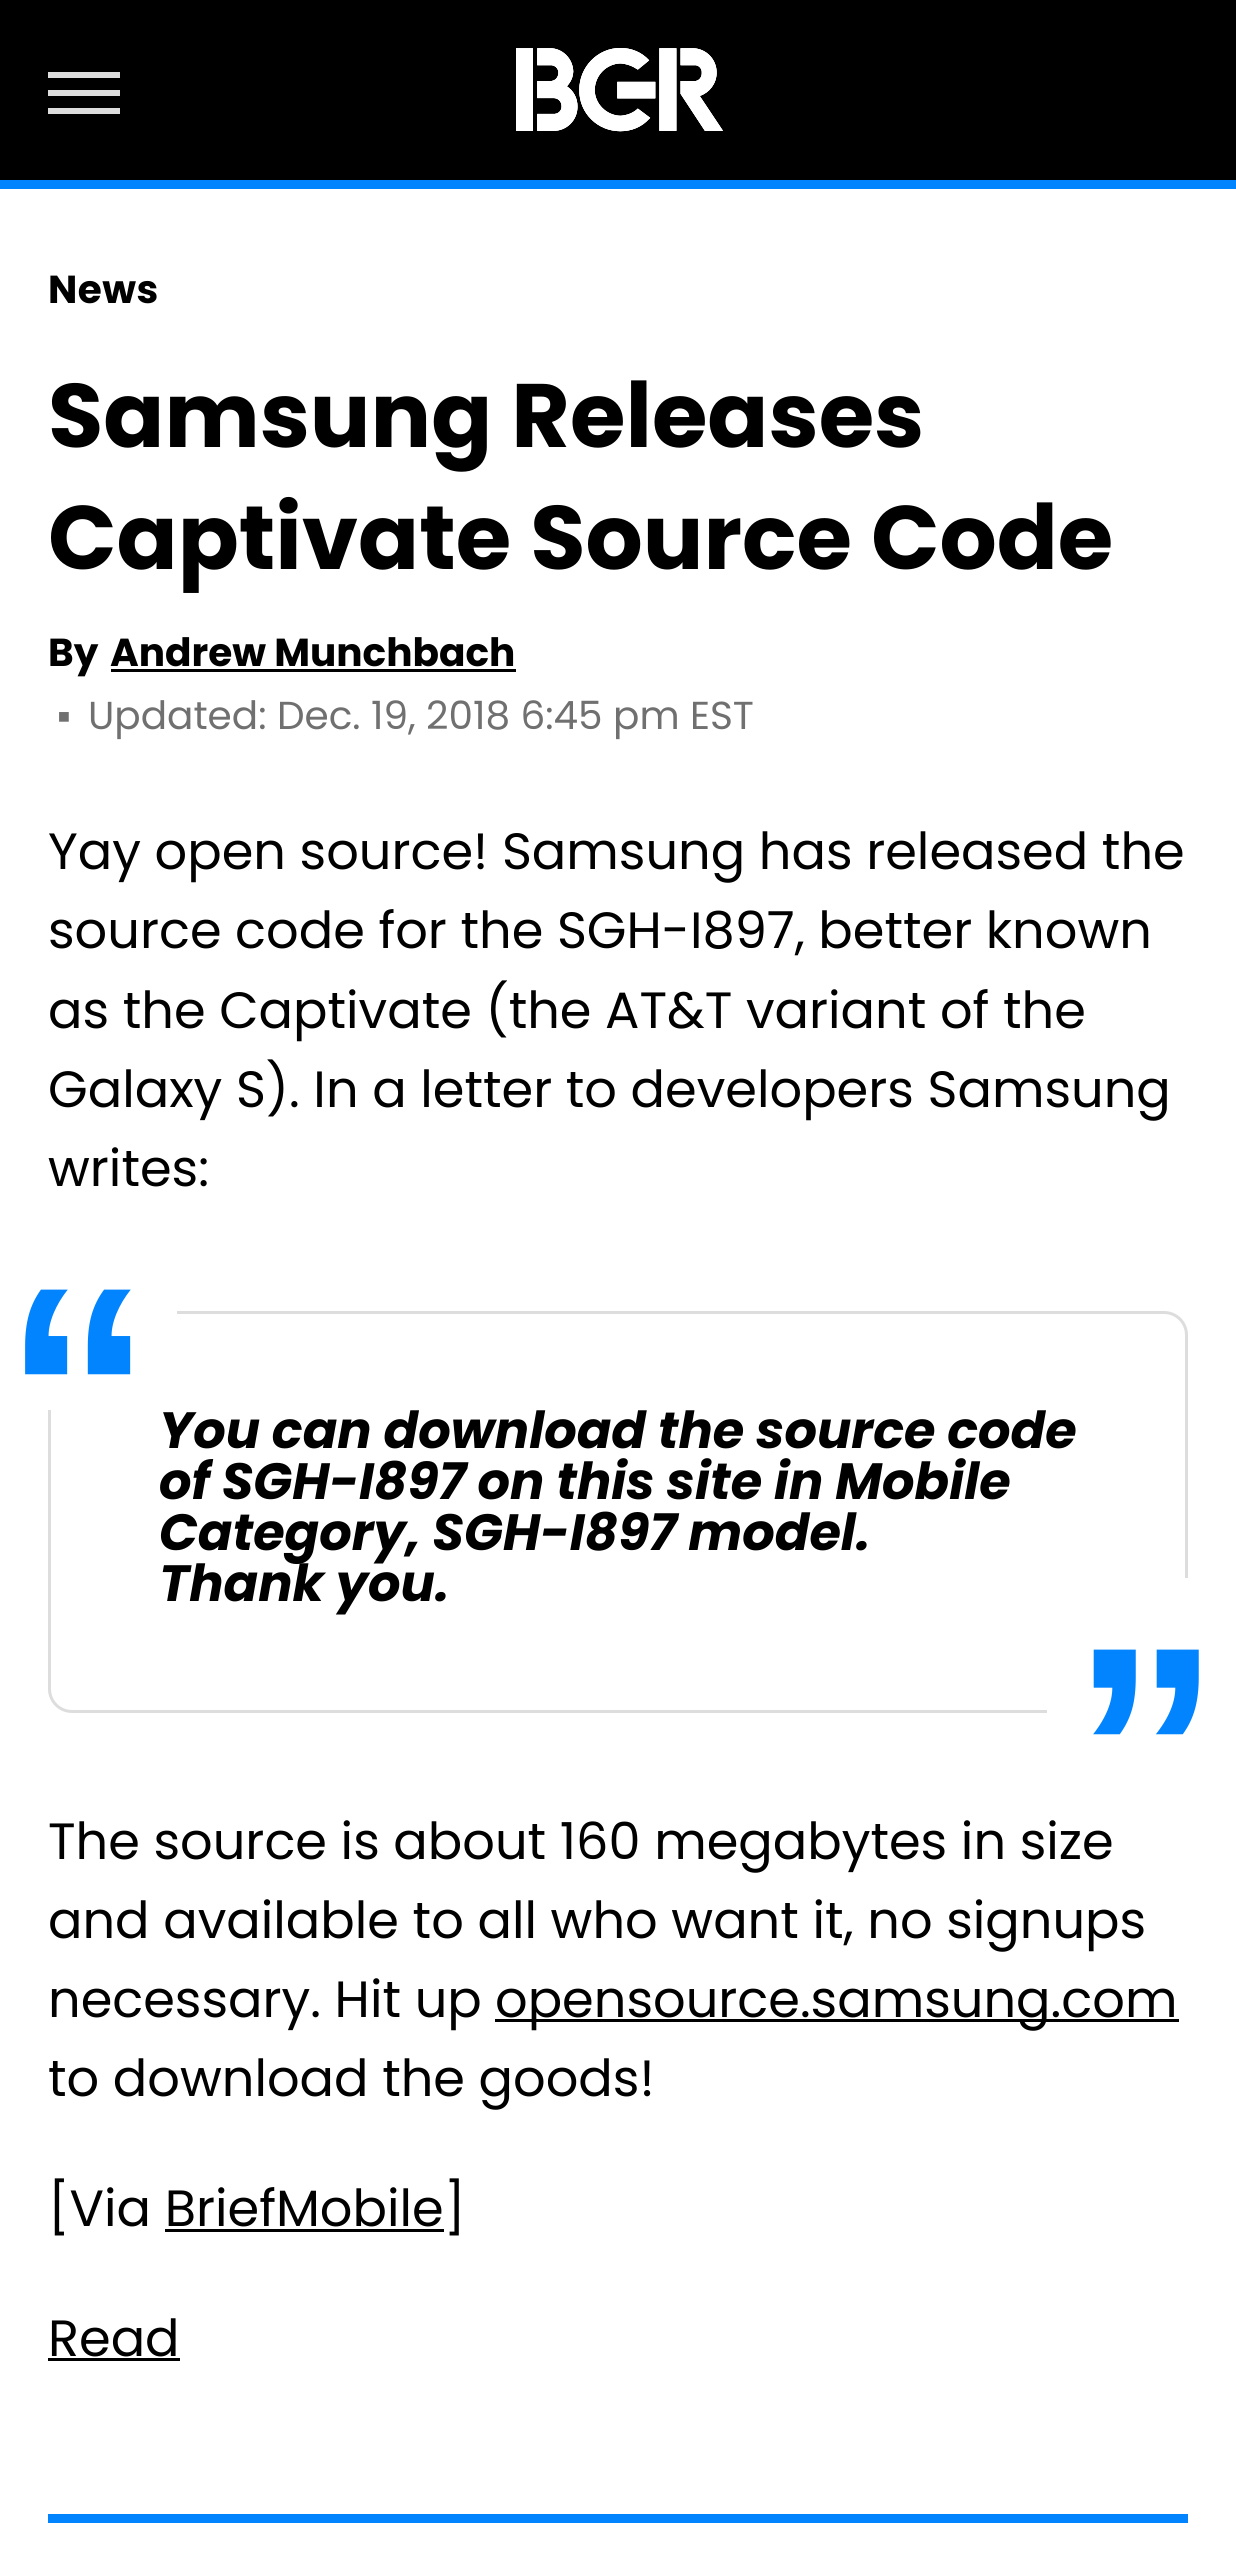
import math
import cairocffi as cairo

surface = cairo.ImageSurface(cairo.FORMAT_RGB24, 1236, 2576)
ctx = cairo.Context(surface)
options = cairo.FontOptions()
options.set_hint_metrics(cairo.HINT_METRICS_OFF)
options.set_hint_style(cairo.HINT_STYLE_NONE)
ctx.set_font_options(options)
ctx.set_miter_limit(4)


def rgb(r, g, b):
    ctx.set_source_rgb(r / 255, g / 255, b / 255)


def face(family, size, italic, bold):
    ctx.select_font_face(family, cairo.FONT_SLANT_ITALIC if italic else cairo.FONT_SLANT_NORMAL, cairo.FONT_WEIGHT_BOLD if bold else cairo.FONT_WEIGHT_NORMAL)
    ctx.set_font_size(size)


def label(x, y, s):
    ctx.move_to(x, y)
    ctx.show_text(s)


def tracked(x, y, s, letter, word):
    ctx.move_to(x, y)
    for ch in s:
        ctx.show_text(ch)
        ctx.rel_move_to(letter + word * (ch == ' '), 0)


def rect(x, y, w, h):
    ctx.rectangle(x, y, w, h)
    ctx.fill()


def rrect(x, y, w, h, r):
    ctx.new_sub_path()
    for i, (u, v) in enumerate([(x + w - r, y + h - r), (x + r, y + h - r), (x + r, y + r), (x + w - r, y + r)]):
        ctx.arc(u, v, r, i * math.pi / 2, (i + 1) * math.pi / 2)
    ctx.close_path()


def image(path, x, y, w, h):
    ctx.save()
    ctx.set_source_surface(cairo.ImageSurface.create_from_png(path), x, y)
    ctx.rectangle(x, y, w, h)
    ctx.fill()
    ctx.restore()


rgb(255, 255, 255)
ctx.paint()
rgb(0, 0, 0)
rect(0, 0, 1236, 180)
rgb(2, 132, 255)
rect(0, 180, 1236, 9)
rgb(221, 221, 221)
rect(48, 72, 72, 6)
rect(48, 90, 72, 6)
rect(48, 108, 72, 6)
image('image0.png', 516, 48, 207, 84)
face('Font', 39, 0, 1)
rgb(0, 0, 0)
tracked(48, 303, 'News', 0.5, 0)
face('Font', 90, 0, 1)
label(48, 447, 'Samsung Releases')
label(48, 569, 'Captivate Source Code')
face('Font', 39, 0, 1)
label(48, 666, 'By')
label(110, 666, 'Andrew Munchbach')
rect(111, 669, 405, 3)
face('Liberation Sans', 39, 0, 0)
rgb(112, 112, 112)
label(57, 729, '▪')
face('poppins', 39, 0, 0)
label(88, 729, 'Updated: Dec. 19, 2018 6:45 pm EST')
face('poppins', 51, 0, 0)
rgb(0, 0, 0)
label(48, 869, 'Yay open source! Samsung has released the')
label(48, 948, 'source code for the SGH-I897, better known')
label(48, 1028, 'as the Captivate (the AT&T variant of the')
label(48, 1107, 'Galaxy S). In a letter to developers Samsung')
label(48, 1186, 'writes:')
rrect(49.5, 1312.5, 1137, 399, 22.5)
rgb(221, 221, 221)
ctx.set_line_width(3)
ctx.stroke()
rgb(255, 255, 255)
rect(48, 1311, 129, 99)
face('Liberation Sans', 300, 0, 1)
rgb(2, 132, 255)
label(3, 1496, '“')
face('poppins', 51, 1, 1)
rgb(0, 0, 0)
label(159, 1448, 'You can download the source code')
label(159, 1499, 'of SGH-I897 on this site in Mobile')
label(159, 1550, 'Category, SGH-I897 model.')
label(159, 1601, 'Thank you.')
rgb(255, 255, 255)
rect(1047, 1578, 141, 135)
face('Liberation Sans', 300, 0, 1)
rgb(2, 132, 255)
label(1071, 1856, '”')
face('poppins', 51, 0, 0)
rgb(0, 0, 0)
label(48, 1859, 'The source is about 160 megabytes in size')
label(48, 1938, 'and available to all who want it, no signups')
label(48, 2017, 'necessary. Hit up')
rect(495, 2019, 684, 3)
label(495, 2017, 'opensource.samsung.com')
label(48, 2096, 'to download the goods!')
label(48, 2226, '[Via BriefMobile')
label(444, 2226, ']')
rect(165, 2229, 279, 3)
label(48, 2356, 'Read')
rect(48, 2358, 132, 3)
rgb(2, 132, 255)
rect(48, 2514, 1140, 9)
surface.write_to_png('render.png')
